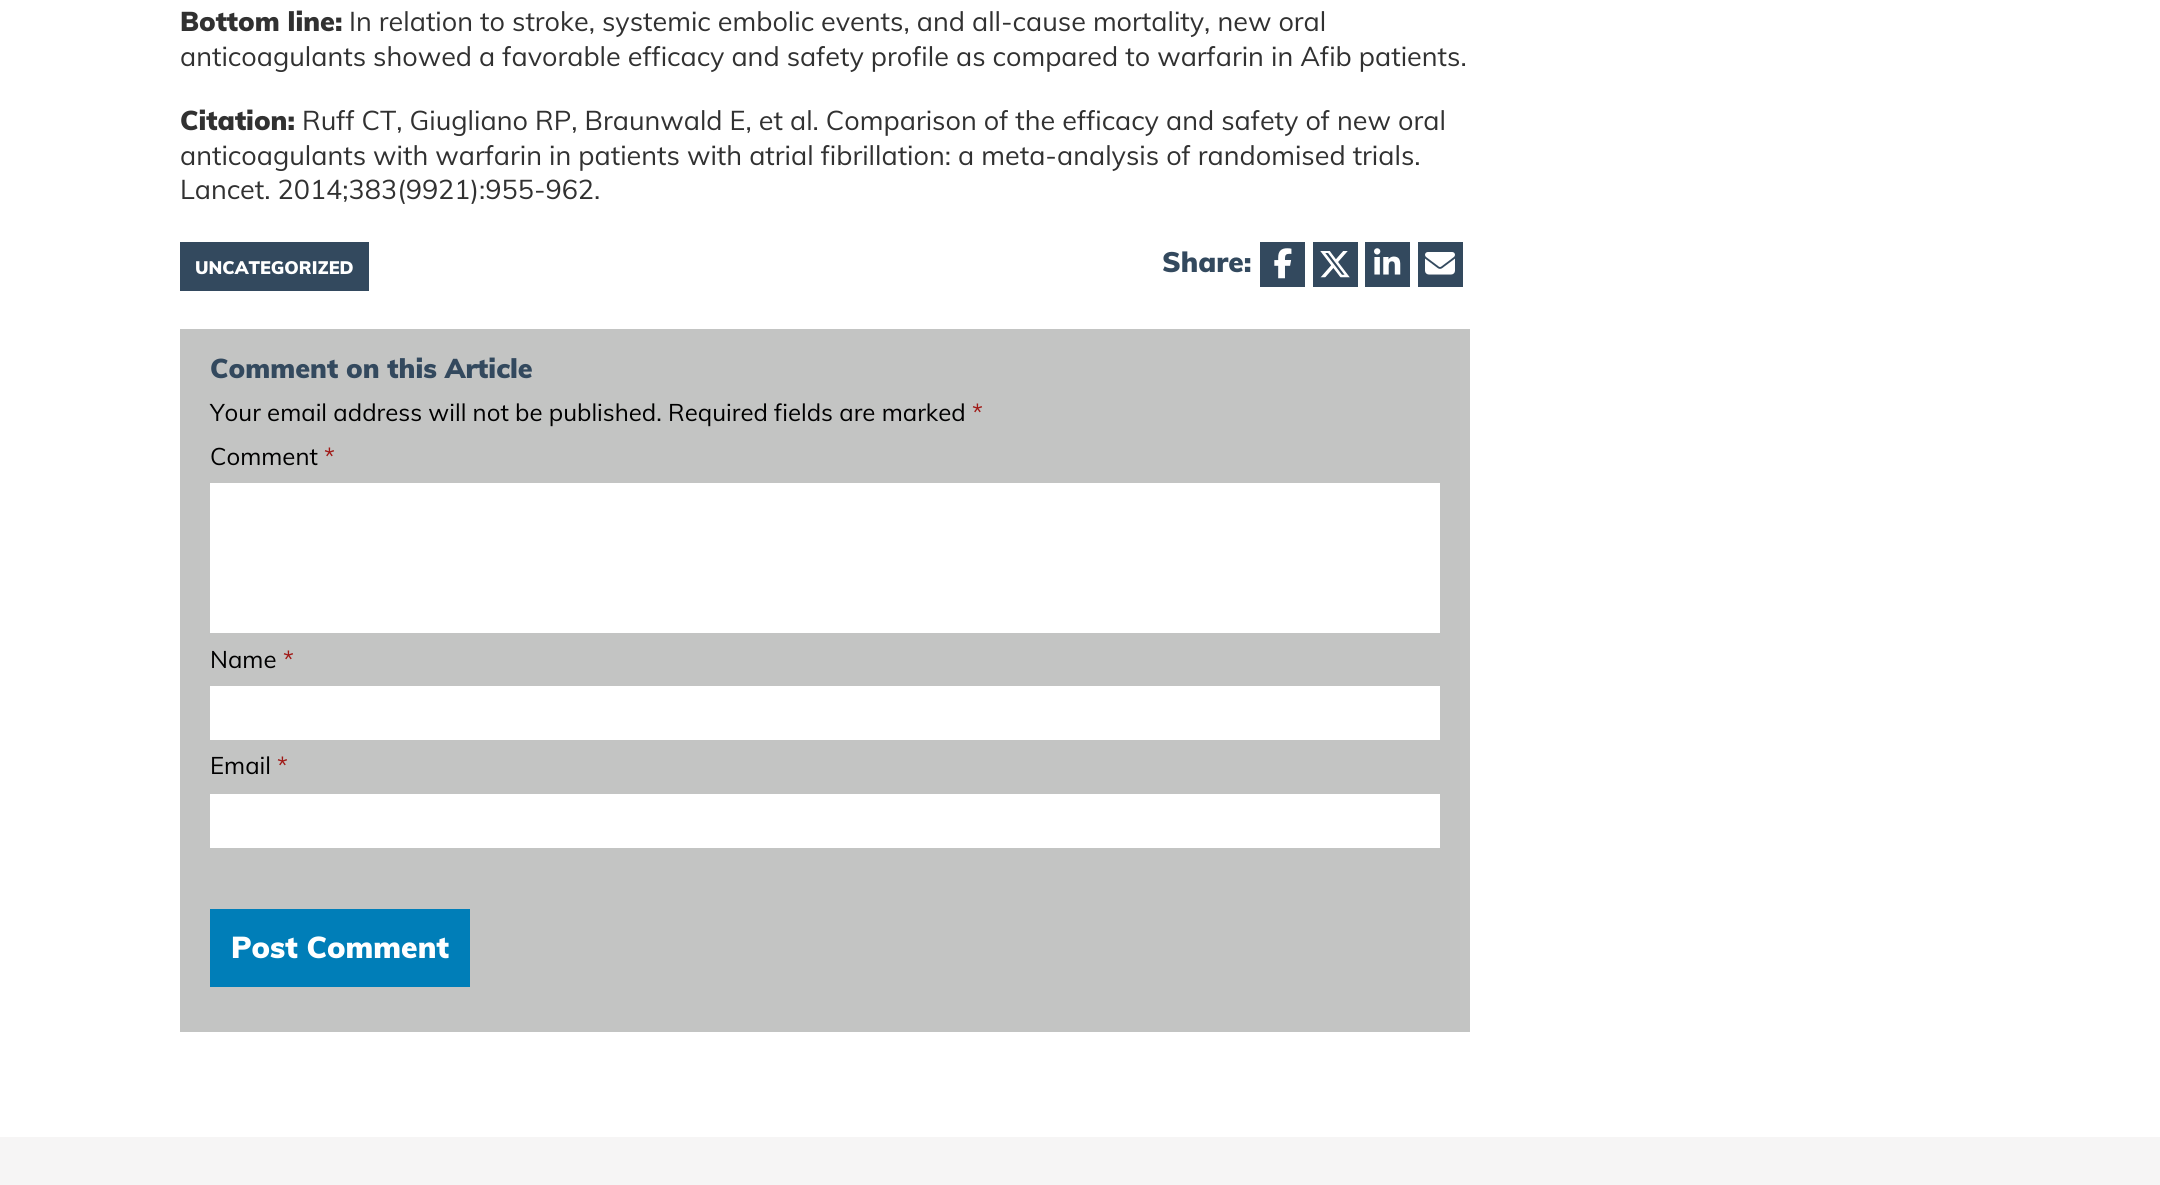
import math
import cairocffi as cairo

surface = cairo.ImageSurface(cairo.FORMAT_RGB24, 2160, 1185)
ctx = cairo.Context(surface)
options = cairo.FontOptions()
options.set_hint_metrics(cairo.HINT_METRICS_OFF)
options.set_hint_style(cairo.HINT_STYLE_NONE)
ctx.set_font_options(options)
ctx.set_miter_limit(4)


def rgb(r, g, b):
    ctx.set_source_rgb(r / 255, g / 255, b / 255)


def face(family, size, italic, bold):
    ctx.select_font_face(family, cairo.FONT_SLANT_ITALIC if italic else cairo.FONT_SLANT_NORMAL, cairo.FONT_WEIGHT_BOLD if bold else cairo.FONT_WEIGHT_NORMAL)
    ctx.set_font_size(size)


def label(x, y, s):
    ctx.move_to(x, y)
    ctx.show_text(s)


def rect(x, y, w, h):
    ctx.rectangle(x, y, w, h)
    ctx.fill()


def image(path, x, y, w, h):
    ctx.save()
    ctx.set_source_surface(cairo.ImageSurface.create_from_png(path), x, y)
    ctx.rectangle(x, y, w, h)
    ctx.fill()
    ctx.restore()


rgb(255, 255, 255)
ctx.paint()
face('Muli Black', 27, 0, 0)
rgb(49, 49, 49)
label(180, 31, 'Bottom line:')
face('Muli', 27, 0, 0)
label(349, 31, 'In relation to stroke, systemic embolic events, and all-cause mortality, new oral')
label(180, 66, 'anticoagulants showed a favorable efficacy and safety profile as compared to warfarin in Afib patients.')
face('Muli Black', 27, 0, 0)
label(180, 130, 'Citation:')
face('Muli', 27, 0, 0)
label(302, 130, 'Ruff CT, Giugliano RP, Braunwald E, et al. Comparison of the efficacy and safety of new oral')
label(180, 165, 'anticoagulants with warfarin in patients with atrial fibrillation: a meta-analysis of randomised trials.')
label(180, 199, 'Lancet. 2014;383(9921):955-962.')
rgb(51, 73, 94)
rect(180, 242, 189, 49)
face('Muli Black', 18, 0, 0)
rgb(255, 255, 255)
label(195, 274, 'UNCATEGORIZED')
face('Muli Black', 28, 0, 0)
rgb(51, 73, 94)
label(1162, 272, 'Share:')
rect(1260, 242, 45, 45)
image('image0.png', 1274, 248, 18, 31)
rect(1313, 242, 45, 45)
image('image1.png', 1320, 251, 30, 27)
rect(1365, 242, 45, 45)
image('image2.png', 1374, 248, 27, 27)
rect(1418, 242, 45, 45)
image('image3.png', 1425, 252, 30, 23)
rgb(195, 196, 195)
rect(180, 329, 1290, 703)
face('Muli Black', 27, 0, 0)
rgb(51, 73, 94)
label(210, 378, 'Comment on this Article')
face('Muli', 24, 0, 0)
rgb(0, 0, 0)
label(210, 421, 'Your email address will not be published. Required fields are marked')
rgb(160, 25, 22)
label(972, 421, '*')
rgb(0, 0, 0)
label(210, 465, 'Comment')
rgb(160, 25, 22)
label(324, 465, '*')
rgb(255, 255, 255)
rect(210, 483, 1230, 150)
rgb(0, 0, 0)
label(210, 668, 'Name')
rgb(160, 25, 22)
label(283, 668, '*')
rgb(255, 255, 255)
rect(210, 686, 1230, 54)
rgb(0, 0, 0)
label(210, 774, 'Email')
rgb(160, 25, 22)
label(277, 774, '*')
rgb(255, 255, 255)
rect(210, 794, 1230, 54)
rgb(0, 126, 184)
rect(210, 909, 260, 78)
face('Muli Black', 30, 0, 0)
rgb(255, 255, 255)
label(231, 958, 'Post Comment')
rgb(246, 245, 245)
rect(0, 1137, 2160, 48)
surface.write_to_png('render.png')
